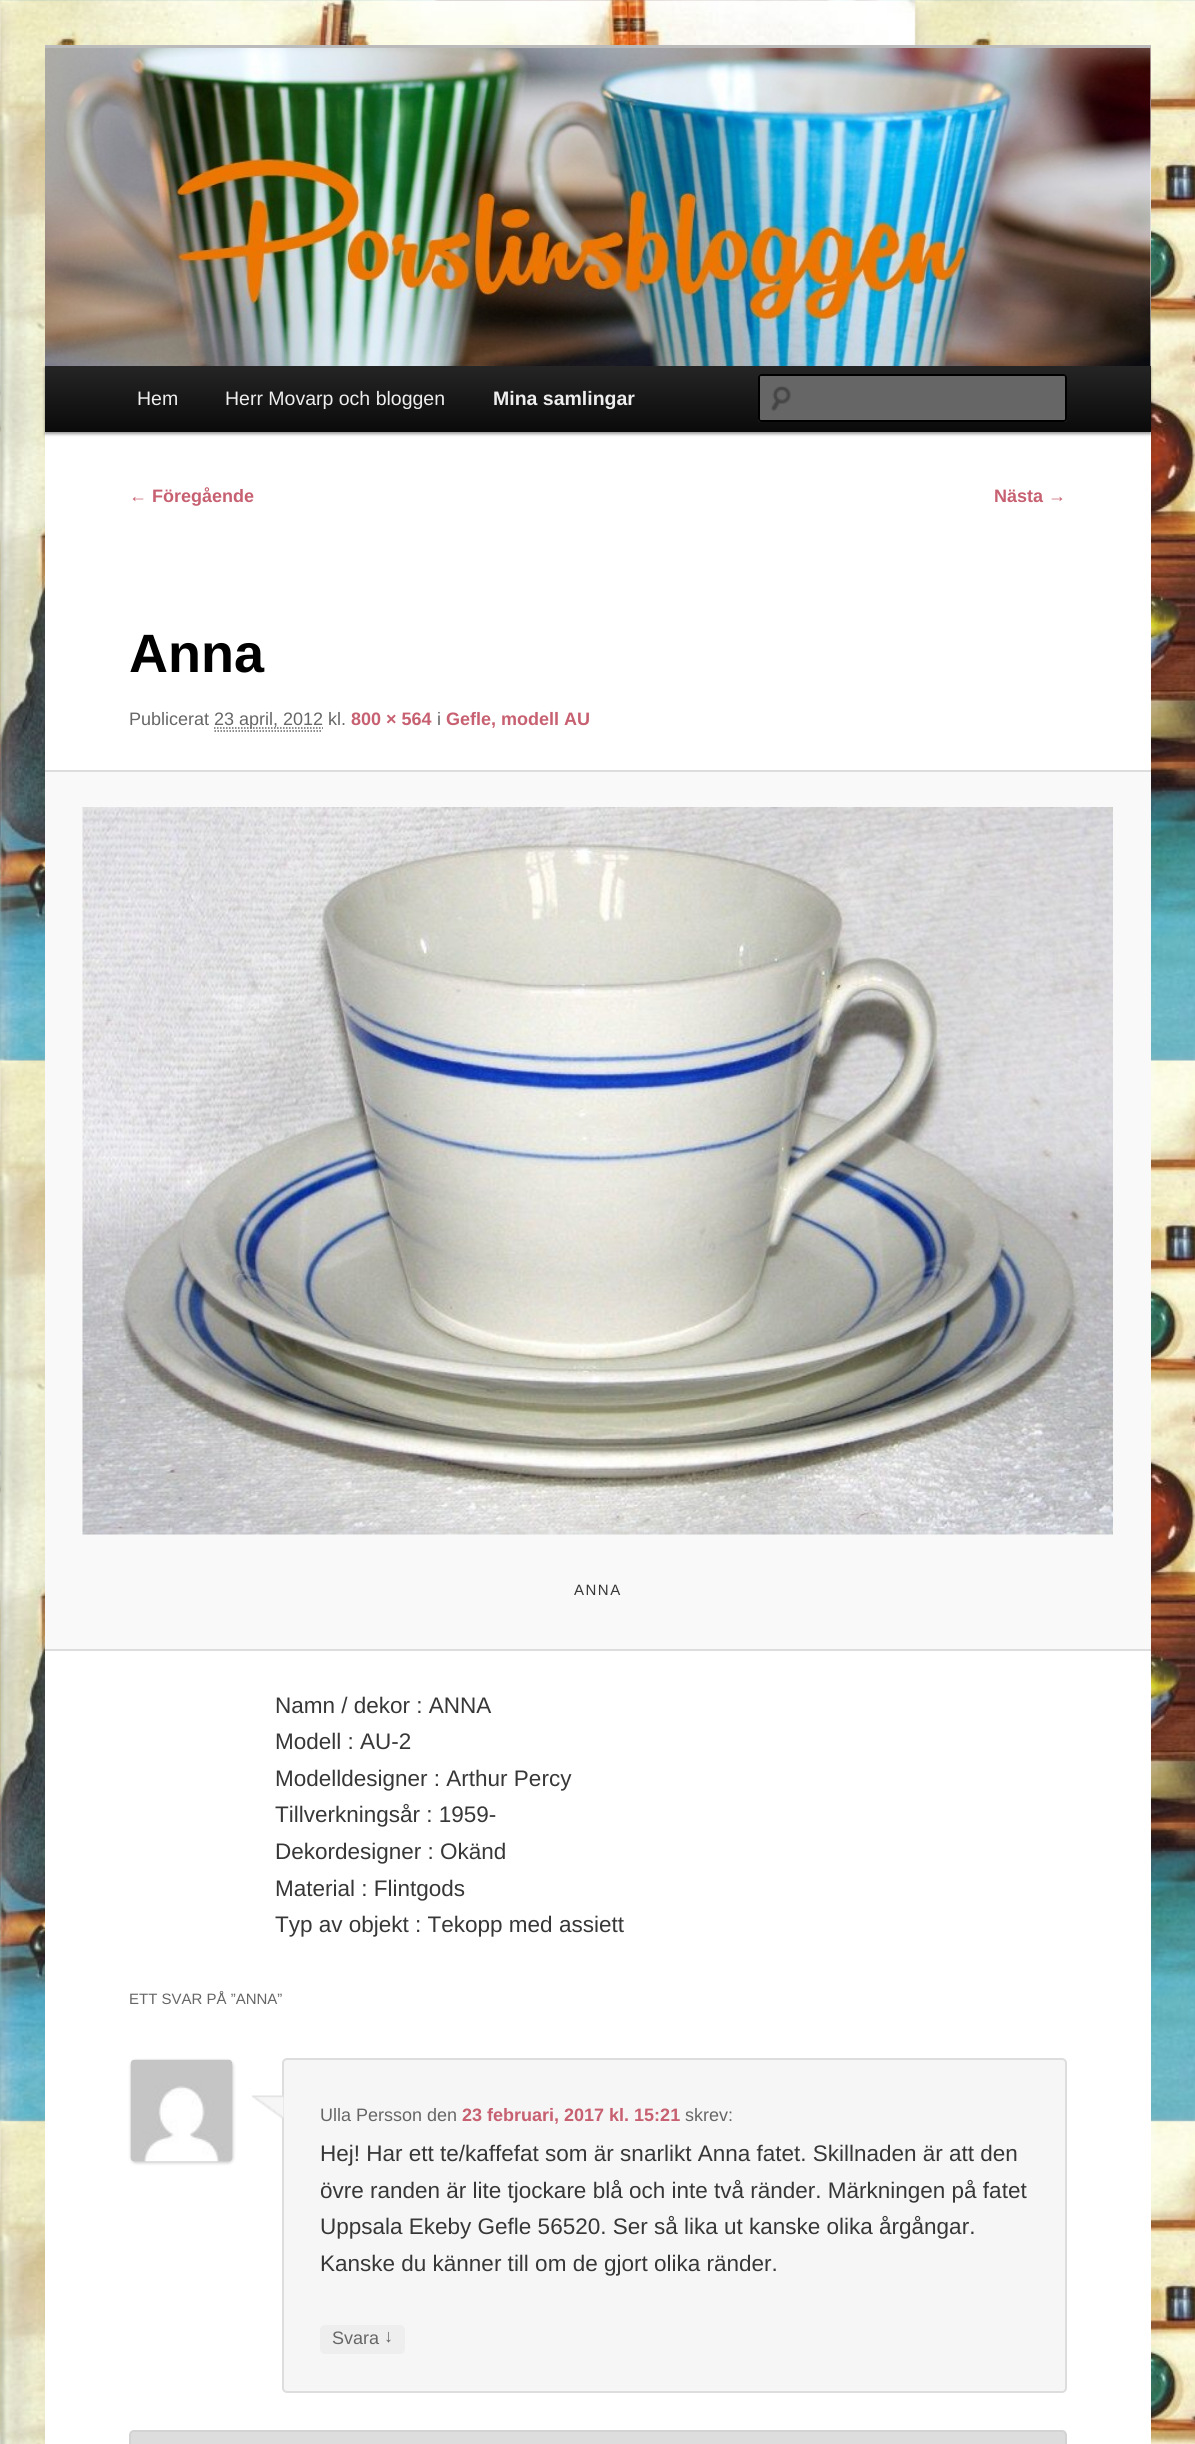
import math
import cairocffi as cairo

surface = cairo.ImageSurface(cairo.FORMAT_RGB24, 1195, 2444)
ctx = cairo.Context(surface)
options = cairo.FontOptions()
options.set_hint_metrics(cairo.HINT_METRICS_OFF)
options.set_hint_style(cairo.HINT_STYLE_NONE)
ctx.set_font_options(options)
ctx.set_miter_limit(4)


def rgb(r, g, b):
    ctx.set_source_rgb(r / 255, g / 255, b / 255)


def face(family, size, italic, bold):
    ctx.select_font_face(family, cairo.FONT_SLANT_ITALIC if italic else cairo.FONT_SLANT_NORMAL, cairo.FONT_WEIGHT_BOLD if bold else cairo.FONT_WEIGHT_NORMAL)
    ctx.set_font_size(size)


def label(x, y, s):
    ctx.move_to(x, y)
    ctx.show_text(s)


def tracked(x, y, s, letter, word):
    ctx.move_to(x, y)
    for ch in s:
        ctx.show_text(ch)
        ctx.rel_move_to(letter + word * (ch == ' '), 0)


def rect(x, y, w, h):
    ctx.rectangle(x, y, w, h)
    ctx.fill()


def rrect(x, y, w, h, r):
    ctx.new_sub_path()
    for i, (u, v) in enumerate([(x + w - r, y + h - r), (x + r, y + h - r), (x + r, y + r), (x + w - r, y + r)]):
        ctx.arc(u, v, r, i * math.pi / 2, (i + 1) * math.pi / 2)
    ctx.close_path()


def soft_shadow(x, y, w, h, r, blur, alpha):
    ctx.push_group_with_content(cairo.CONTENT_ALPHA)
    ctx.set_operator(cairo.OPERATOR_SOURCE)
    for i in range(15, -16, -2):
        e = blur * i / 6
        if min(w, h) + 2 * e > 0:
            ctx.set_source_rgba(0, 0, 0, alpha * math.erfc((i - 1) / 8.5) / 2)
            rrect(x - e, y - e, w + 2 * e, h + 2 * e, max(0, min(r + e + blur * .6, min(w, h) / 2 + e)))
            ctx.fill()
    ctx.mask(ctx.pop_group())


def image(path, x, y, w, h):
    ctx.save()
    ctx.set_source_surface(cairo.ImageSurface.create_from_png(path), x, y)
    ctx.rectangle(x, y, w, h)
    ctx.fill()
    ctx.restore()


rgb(255, 255, 255)
ctx.paint()
image('image0.png', 0, 0, 1195, 2444)
rgb(255, 255, 255)
rect(45, 48, 1106, 2396)
rgb(187, 187, 187)
rect(45, 45, 1106, 3)
rgb(0, 0, 0)
soft_shadow(45, 368, 1106, 66, 0, 1.5, 0.4)
image('image1.png', 45, 48, 1106, 318)
gradient = cairo.LinearGradient(598, 366, 598, 432)
gradient.add_color_stop_rgba(0, 0.145, 0.145, 0.145, 1)
gradient.add_color_stop_rgba(1, 0.039, 0.039, 0.039, 1)
ctx.set_source(gradient)
rect(45, 366, 1106, 66)
face('Liberation Sans', 19.5, 0, 0)
rgb(238, 238, 238)
label(137, 405, 'Hem')
label(225, 405, 'Herr Movarp och bloggen')
face('Liberation Sans', 19.5, 0, 1)
label(493, 405, 'Mina samlingar')
rgb(102, 102, 102)
rrect(758, 374, 309, 48, 3)
ctx.fill()
image('image2.png', 771, 386, 20, 25)
rgb(92, 92, 92)
ctx.new_path()
ctx.move_to(760, 376)
ctx.line_to(1064, 376)
ctx.line_to(1065, 378)
ctx.line_to(1065, 376)
ctx.line_to(1064, 375)
ctx.line_to(760, 375)
ctx.curve_to(759, 375, 759, 377, 759, 378)
ctx.close_path()
ctx.fill()
rrect(759, 375, 307, 46, 2)
rgb(0, 0, 0)
ctx.stroke()
face('Liberation Sans', 18, 0, 1)
rgb(199, 96, 112)
label(129, 502, '← Föregående')
label(994, 502, 'Nästa →')
face('Liberation Sans', 54, 0, 1)
rgb(0, 0, 0)
label(129, 672, 'Anna')
face('Liberation Sans', 18, 0, 0)
rgb(102, 102, 102)
label(129, 725, 'Publicerat')
ctx.new_path()
ctx.move_to(214, 728)
ctx.line_to(323, 728)
ctx.set_line_width(1.5)
ctx.set_dash([1.5, 1.5])
ctx.stroke()
label(214, 725, '23 april, 2012 kl.')
ctx.new_path()
ctx.move_to(214.5, 731)
ctx.line_to(322.5, 731)
ctx.stroke()
face('Liberation Sans', 18, 0, 1)
rgb(199, 96, 112)
label(351, 725, '800 × 564')
face('Liberation Sans', 18, 0, 0)
rgb(102, 102, 102)
label(437, 725, 'i')
face('Liberation Sans', 18, 0, 1)
rgb(199, 96, 112)
label(446, 725, 'Gefle, modell AU')
rgb(249, 249, 249)
rect(45, 772, 1106, 877)
rgb(221, 221, 221)
rect(45, 770, 1106, 2)
rect(45, 1649, 1106, 2)
image('image3.png', 82, 807, 1031, 728)
face('Liberation Sans', 15, 0, 0)
rgb(55, 55, 55)
tracked(574, 1595, 'ANNA', 1.5, 0)
face('Liberation Sans', 22.5, 0, 0)
label(275, 1713, 'Namn / dekor : ANNA')
label(275, 1749, 'Modell : AU-2')
label(275, 1786, 'Modelldesigner : Arthur Percy')
label(275, 1822, 'Tillverkningsår : 1959-')
label(275, 1859, 'Dekordesigner : Okänd')
label(275, 1896, 'Material : Flintgods')
label(275, 1932, 'Typ av objekt : Tekopp med assiett')
face('Liberation Sans', 15, 0, 0)
rgb(102, 102, 102)
label(129, 2004, 'ETT SVAR PÅ ”ANNA”')
rgb(246, 246, 246)
rrect(283, 2059, 783, 333, 4)
ctx.fill_preserve()
rgb(221, 221, 221)
ctx.set_line_width(2)
ctx.set_dash([])
ctx.stroke()
image('image4.png', 252, 2095, 32, 24)
rgb(204, 204, 204)
soft_shadow(131, 2061, 102, 102, 5, 1.5, 1)
image('image5.png', 130, 2059, 103, 103)
face('Liberation Sans', 18, 0, 0)
rgb(102, 102, 102)
label(320, 2121, 'Ulla Persson den')
face('Liberation Sans', 18, 0, 1)
rgb(199, 96, 112)
label(462, 2121, '23 februari, 2017 kl. 15:21')
face('Liberation Sans', 18, 0, 0)
rgb(102, 102, 102)
label(685, 2121, 'skrev:')
face('Liberation Sans', 22.5, 0, 0)
rgb(55, 55, 55)
label(320, 2161, 'Hej! Har ett te/kaffefat som är snarlikt Anna fatet. Skillnaden är att den')
label(320, 2198, 'övre randen är lite tjockare blå och inte två ränder. Märkningen på fatet')
label(320, 2234, 'Uppsala Ekeby Gefle 56520. Ser så lika ut kanske olika årgångar.')
label(320, 2271, 'Kanske du känner till om de gjort olika ränder.')
rgb(238, 238, 238)
rrect(320, 2325, 85, 29, 5)
ctx.fill()
face('Liberation Sans', 18, 0, 0)
rgb(102, 102, 102)
label(332, 2344, 'Svara')
label(384, 2342, '↓')
rgb(221, 221, 221)
rrect(130, 2431, 936, 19, 4)
ctx.fill_preserve()
rgb(211, 211, 211)
ctx.stroke()
surface.write_to_png('render.png')
